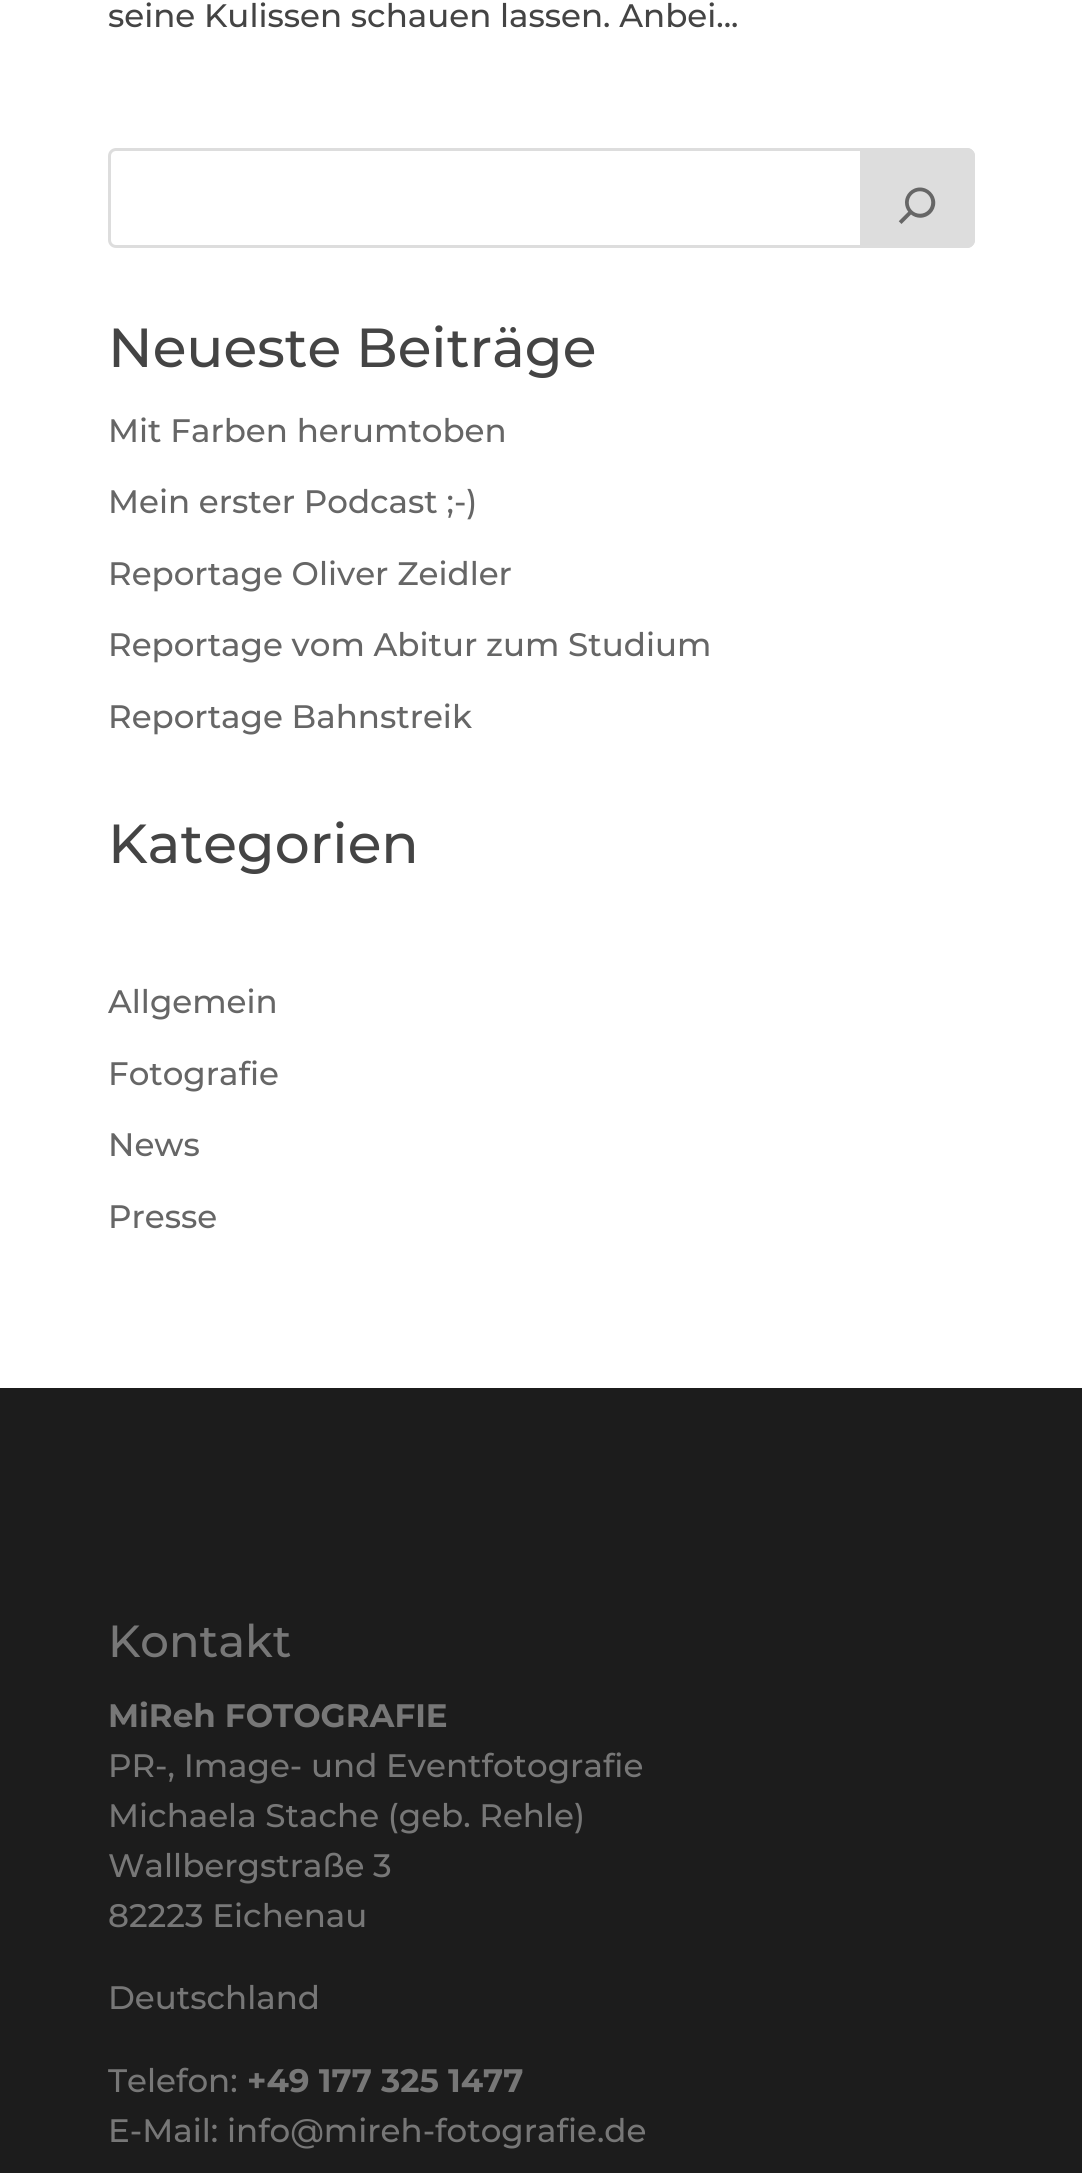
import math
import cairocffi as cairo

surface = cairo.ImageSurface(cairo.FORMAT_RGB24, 1082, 2173)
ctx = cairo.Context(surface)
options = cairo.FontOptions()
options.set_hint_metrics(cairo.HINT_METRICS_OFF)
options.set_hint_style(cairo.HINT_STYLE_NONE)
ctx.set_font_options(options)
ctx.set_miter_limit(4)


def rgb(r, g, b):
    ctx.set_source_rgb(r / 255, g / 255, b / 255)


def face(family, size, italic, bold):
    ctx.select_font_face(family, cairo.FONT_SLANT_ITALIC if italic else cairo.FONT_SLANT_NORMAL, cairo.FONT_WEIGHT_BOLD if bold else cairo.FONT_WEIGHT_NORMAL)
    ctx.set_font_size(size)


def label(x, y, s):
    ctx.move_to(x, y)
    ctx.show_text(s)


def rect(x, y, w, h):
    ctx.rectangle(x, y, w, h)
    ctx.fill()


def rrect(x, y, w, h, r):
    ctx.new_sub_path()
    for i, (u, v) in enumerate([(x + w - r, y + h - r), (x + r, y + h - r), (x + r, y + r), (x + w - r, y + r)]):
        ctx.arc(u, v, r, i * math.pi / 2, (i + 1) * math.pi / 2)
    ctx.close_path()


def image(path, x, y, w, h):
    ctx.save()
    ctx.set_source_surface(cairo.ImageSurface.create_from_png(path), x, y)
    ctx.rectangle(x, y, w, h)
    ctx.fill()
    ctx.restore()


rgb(255, 255, 255)
ctx.paint()
face('Montserrat Medium', 32.5, 0, 0)
rgb(68, 68, 68)
label(108, 27, 'seine Kulissen schauen lassen. Anbei...')
rrect(109.5, 149.5, 864, 97, 6.5)
rgb(221, 221, 221)
ctx.set_line_width(3)
ctx.stroke()
ctx.new_path()
ctx.move_to(861.5, 149.5)
ctx.line_to(967, 149.5)
ctx.curve_to(970.5, 149.5, 973.5, 152.5, 973.5, 156)
ctx.line_to(973.5, 240)
ctx.curve_to(973.5, 243.5, 970.5, 246.5, 967, 246.5)
ctx.line_to(861.5, 246.5)
ctx.close_path()
ctx.fill_preserve()
ctx.stroke()
image('image0.png', 898, 187, 38, 37)
face('Montserrat Medium', 55, 0, 0)
rgb(68, 68, 68)
label(108, 367, 'Neueste Beiträge')
face('Montserrat Medium', 32.5, 0, 0)
rgb(102, 102, 102)
label(108, 442, 'Mit Farben herumtoben')
label(108, 513, 'Mein erster Podcast ;-)')
label(108, 585, 'Reportage Oliver Zeidler')
label(108, 656, 'Reportage vom Abitur zum Studium')
label(108, 728, 'Reportage Bahnstreik')
face('Montserrat Medium', 55, 0, 0)
rgb(68, 68, 68)
label(108, 863, 'Kategorien')
face('Montserrat Medium', 32.5, 0, 0)
rgb(102, 102, 102)
label(108, 1013, 'Allgemein')
label(108, 1085, 'Fotografie')
label(108, 1156, 'News')
label(108, 1228, 'Presse')
rgb(28, 28, 28)
rect(0, 1388, 1082, 785)
face('Montserrat Medium', 45, 0, 0)
rgb(119, 119, 119)
label(108, 1657, 'Kontakt')
face('Montserrat', 32.5, 0, 1)
label(108, 1727, 'MiReh FOTOGRAFIE')
face('Montserrat Medium', 32.5, 0, 0)
label(108, 1777, 'PR-, Image- und Eventfotografie')
label(108, 1827, 'Michaela Stache (geb. Rehle)')
label(108, 1877, 'Wallbergstraße 3')
label(108, 1927, '82223 Eichenau')
label(108, 2009, 'Deutschland')
label(108, 2092, 'Telefon:')
face('Montserrat', 32.5, 0, 1)
label(247, 2092, '+49 177 325 1477')
face('Montserrat Medium', 32.5, 0, 0)
label(108, 2142, 'E-Mail: info@mireh-fotografie.de')
surface.write_to_png('render.png')
